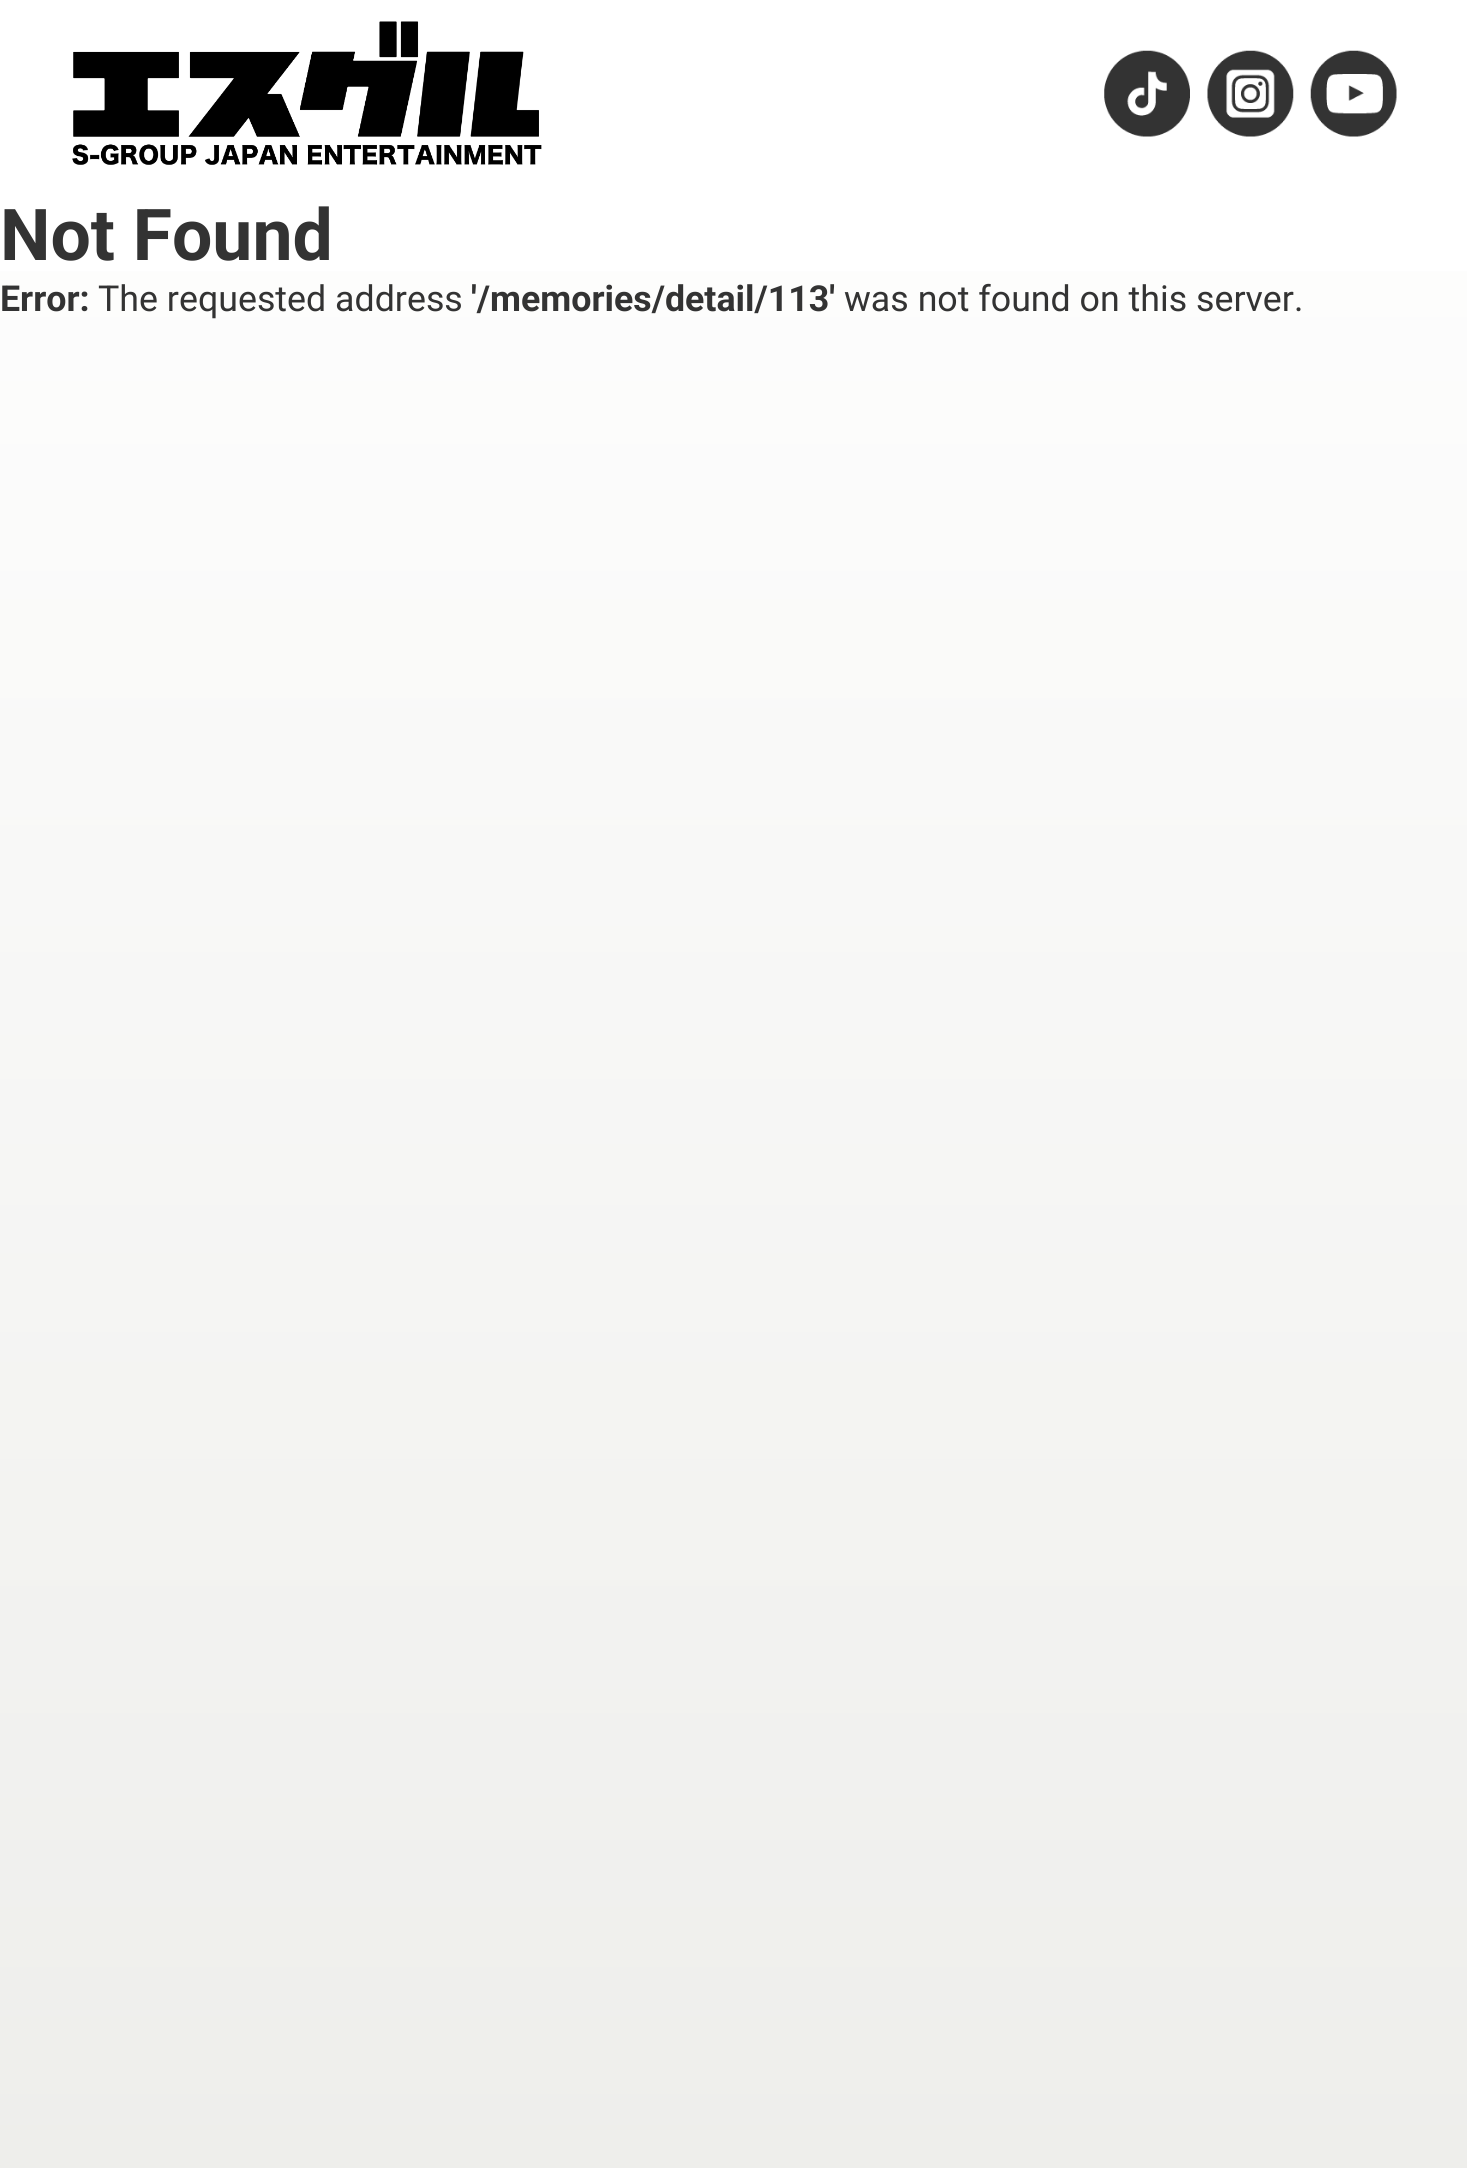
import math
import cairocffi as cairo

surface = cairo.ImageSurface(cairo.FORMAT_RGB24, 1467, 2168)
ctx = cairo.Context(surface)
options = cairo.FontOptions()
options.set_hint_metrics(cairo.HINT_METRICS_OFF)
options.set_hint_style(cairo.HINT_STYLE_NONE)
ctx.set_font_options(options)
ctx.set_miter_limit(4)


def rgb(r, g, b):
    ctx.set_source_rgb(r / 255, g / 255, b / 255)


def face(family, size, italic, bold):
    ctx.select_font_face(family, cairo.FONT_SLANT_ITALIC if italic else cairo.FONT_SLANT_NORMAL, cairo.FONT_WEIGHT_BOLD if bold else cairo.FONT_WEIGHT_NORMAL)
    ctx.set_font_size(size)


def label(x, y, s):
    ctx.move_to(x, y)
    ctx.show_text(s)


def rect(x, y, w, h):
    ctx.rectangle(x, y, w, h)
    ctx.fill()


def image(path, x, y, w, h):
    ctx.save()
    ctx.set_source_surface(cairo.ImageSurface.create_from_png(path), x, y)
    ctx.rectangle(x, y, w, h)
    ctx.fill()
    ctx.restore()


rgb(255, 255, 255)
ctx.paint()
image('image0.png', 72, 21, 470, 144)
image('image1.png', 1104, 50, 86, 87)
image('image2.png', 1207, 50, 87, 87)
image('image3.png', 1310, 50, 87, 87)
face('Roboto', 71.5, 0, 1)
rgb(51, 51, 51)
label(0, 260, 'Not Found')
gradient = cairo.LinearGradient(734, 0, 734, 2168)
gradient.add_color_stop_rgba(0, 1, 1, 1, 1)
gradient.add_color_stop_rgba(1, 0.933, 0.933, 0.922, 1)
ctx.set_source(gradient)
rect(0, 271, 1467, 1897)
face('Roboto', 35.75, 0, 1)
rgb(51, 51, 51)
label(0, 311, 'Error:')
face('Roboto', 35.75, 0, 0)
label(98, 311, 'The requested address')
face('Roboto', 35.75, 0, 1)
label(471, 311, '\'/memories/detail/113\'')
face('Roboto', 35.75, 0, 0)
label(844, 311, 'was not found on this server.')
surface.write_to_png('render.png')
